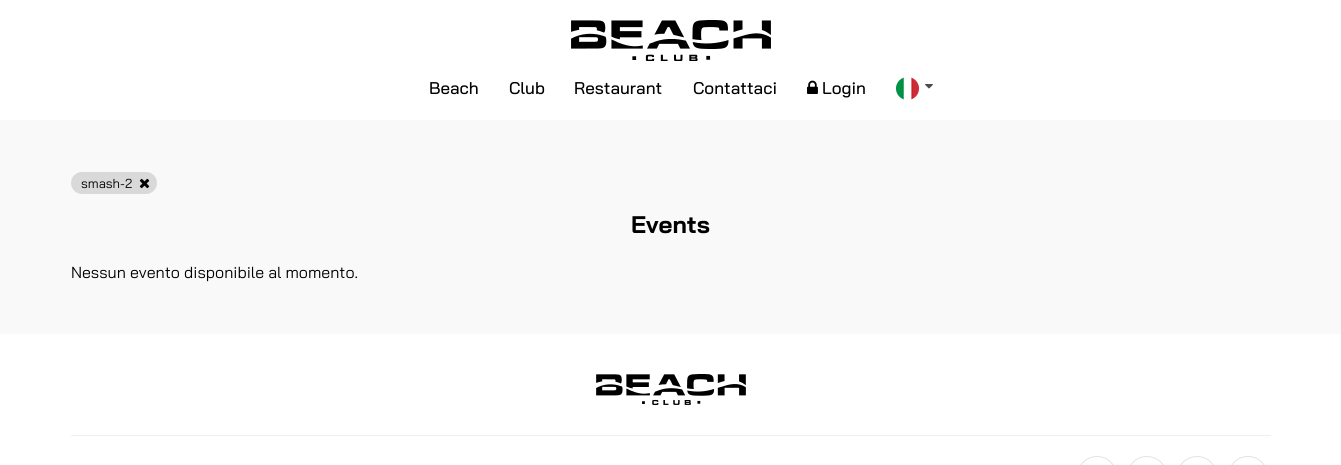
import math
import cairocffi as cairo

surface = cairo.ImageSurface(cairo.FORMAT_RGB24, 1341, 465)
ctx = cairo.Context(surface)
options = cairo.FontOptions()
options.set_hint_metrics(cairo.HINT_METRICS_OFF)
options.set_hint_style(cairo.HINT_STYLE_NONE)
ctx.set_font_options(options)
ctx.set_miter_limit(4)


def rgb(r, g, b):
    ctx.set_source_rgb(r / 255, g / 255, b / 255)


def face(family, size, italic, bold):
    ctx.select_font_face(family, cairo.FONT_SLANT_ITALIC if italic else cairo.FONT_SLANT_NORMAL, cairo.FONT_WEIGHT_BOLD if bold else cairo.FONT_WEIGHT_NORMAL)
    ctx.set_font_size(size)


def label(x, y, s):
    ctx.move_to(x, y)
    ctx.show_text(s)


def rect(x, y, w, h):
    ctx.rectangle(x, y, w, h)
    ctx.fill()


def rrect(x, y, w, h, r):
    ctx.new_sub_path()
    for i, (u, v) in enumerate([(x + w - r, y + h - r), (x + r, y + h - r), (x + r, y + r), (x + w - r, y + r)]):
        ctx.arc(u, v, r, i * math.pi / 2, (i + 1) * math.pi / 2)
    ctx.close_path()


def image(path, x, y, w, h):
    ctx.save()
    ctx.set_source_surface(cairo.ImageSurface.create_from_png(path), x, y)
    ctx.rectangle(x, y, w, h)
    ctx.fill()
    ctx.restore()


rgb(255, 255, 255)
ctx.paint()
image('image0.png', 571, 20, 200, 41)
face('Bai Jamjuree Medium', 17, 0, 0)
rgb(0, 0, 0)
label(429, 94, 'Beach')
label(509, 94, 'Club')
label(574, 94, 'Restaurant')
label(693, 94, 'Contattaci')
image('image1.png', 807, 80, 11, 14)
label(822, 94, 'Login')
image('image2.png', 896, 77, 23, 23)
image('image3.png', 925, 84, 8, 5)
rgb(249, 249, 249)
rect(0, 120, 1341, 214)
rgb(217, 217, 217)
rrect(71, 172, 86, 22, 11)
ctx.fill()
face('Bai Jamjuree', 13, 0, 0)
rgb(0, 0, 0)
label(81, 188, 'smash-2')
image('image4.png', 139, 178, 11, 11)
face('Bai Jamjuree', 24, 0, 1)
label(631, 233, 'Events')
face('Bai Jamjuree', 16, 0, 0)
label(71, 278, 'Nessun evento disponibile al momento.')
image('image5.png', 596, 374, 150, 31)
rgb(239, 239, 239)
rect(71, 435, 1200, 1)
rrect(1077.5, 456.5, 39, 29, 19.5)
rgb(227, 227, 227)
ctx.set_line_width(1)
ctx.stroke()
rrect(1127.5, 456.5, 39, 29, 19.5)
ctx.stroke()
rrect(1177.5, 456.5, 39, 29, 19.5)
ctx.stroke()
rrect(1228.5, 456.5, 39, 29, 19.5)
ctx.stroke()
surface.write_to_png('render.png')
